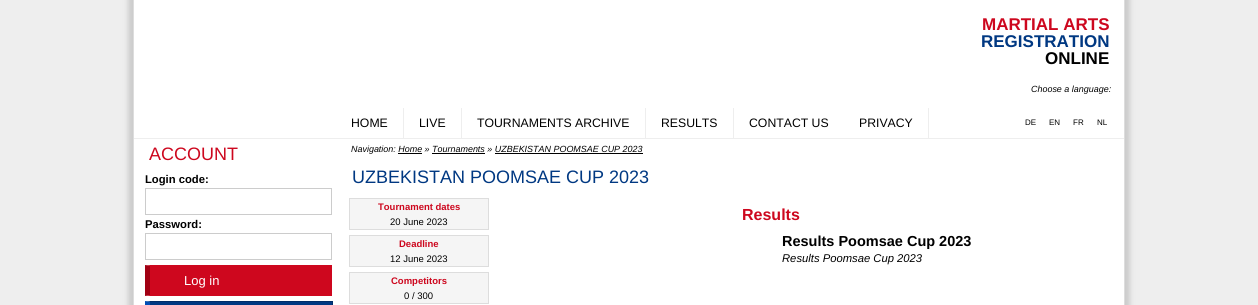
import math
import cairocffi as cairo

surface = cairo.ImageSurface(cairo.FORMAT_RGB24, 1258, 305)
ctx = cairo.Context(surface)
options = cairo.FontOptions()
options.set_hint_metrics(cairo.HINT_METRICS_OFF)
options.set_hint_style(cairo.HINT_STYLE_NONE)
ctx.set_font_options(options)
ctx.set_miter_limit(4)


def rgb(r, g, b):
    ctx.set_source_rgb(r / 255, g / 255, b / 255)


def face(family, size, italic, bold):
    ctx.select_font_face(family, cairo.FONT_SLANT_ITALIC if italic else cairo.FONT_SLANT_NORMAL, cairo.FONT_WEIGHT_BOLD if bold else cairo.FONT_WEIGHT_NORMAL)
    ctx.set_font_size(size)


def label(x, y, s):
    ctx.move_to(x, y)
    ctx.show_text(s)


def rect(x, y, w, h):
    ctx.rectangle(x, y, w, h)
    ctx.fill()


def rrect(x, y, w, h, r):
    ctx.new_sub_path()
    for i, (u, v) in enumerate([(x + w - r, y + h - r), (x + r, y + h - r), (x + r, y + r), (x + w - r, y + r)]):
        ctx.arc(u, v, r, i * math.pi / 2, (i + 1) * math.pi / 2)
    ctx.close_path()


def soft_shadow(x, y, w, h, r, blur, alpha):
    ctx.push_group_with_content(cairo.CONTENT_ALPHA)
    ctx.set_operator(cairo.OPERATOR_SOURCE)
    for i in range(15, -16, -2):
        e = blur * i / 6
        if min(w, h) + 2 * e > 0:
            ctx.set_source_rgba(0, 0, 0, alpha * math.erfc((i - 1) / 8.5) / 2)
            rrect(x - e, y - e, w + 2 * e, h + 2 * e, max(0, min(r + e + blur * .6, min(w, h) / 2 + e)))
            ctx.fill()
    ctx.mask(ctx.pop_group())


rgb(238, 238, 238)
ctx.paint()
rgb(204, 204, 204)
soft_shadow(128, -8, 1002, 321, 0, 2.5, 1)
rgb(255, 255, 255)
rect(134, 0, 990, 305)
rgb(221, 221, 221)
rect(1124, 0, 1, 305)
rect(133, 0, 1, 305)
face('Liberation Sans', 17, 0, 1)
rgb(205, 7, 30)
label(982, 30, 'MARTIAL ARTS')
rgb(0, 56, 130)
label(981, 47, 'REGISTRATION')
rgb(0, 0, 0)
label(1045, 64, 'ONLINE')
face('Liberation Sans', 8.95, 1, 0)
label(1031, 92, 'Choose a language:')
rgb(238, 238, 238)
rect(134, 138, 990, 1)
rect(403, 108, 1, 30)
face('Liberation Sans', 12.25, 0, 0)
rgb(0, 0, 0)
label(351, 127, 'HOME')
rgb(238, 238, 238)
rect(461, 108, 1, 30)
rgb(0, 0, 0)
label(419, 127, 'LIVE')
rgb(238, 238, 238)
rect(645, 108, 1, 30)
rgb(0, 0, 0)
label(477, 127, 'TOURNAMENTS ARCHIVE')
rgb(238, 238, 238)
rect(733, 108, 1, 30)
rgb(0, 0, 0)
label(661, 127, 'RESULTS')
label(749, 127, 'CONTACT US')
rgb(238, 238, 238)
rect(928, 108, 1, 30)
rgb(0, 0, 0)
label(859, 127, 'PRIVACY')
face('Liberation Sans', 8, 0, 0)
label(1025, 125, 'DE')
label(1049, 125, 'EN')
label(1073, 125, 'FR')
label(1097, 125, 'NL')
face('Liberation Sans', 18, 0, 0)
rgb(205, 7, 30)
label(149, 160, 'ACCOUNT')
face('Liberation Sans', 11.25, 0, 1)
rgb(0, 0, 0)
label(145, 183, 'Login code:')
ctx.rectangle(145.5, 188.5, 186, 26)
rgb(204, 204, 204)
ctx.set_line_width(1)
ctx.stroke()
rgb(0, 0, 0)
label(145, 228, 'Password:')
ctx.rectangle(145.5, 233.5, 186, 26)
rgb(204, 204, 204)
ctx.stroke()
rgb(206, 7, 30)
rect(150, 266, 181, 29)
ctx.new_path()
ctx.move_to(145, 265)
ctx.line_to(332, 265)
ctx.line_to(331, 266)
ctx.line_to(150, 266)
ctx.close_path()
ctx.fill()
rect(331, 265, 1, 31)
ctx.new_path()
ctx.move_to(332, 296)
ctx.line_to(145, 296)
ctx.line_to(150, 295)
ctx.line_to(331, 295)
ctx.close_path()
ctx.fill()
rgb(161, 0, 19)
ctx.new_path()
ctx.move_to(145, 296)
ctx.line_to(145, 265)
ctx.line_to(150, 266)
ctx.line_to(150, 295)
ctx.close_path()
ctx.fill()
face('Liberation Sans', 13, 0, 0)
rgb(255, 255, 255)
label(184, 285, 'Log in')
rgb(0, 56, 130)
rect(150, 302, 182, 3)
rgb(0, 45, 105)
ctx.new_path()
ctx.move_to(145, 301)
ctx.line_to(333, 301)
ctx.line_to(332, 302)
ctx.line_to(150, 302)
ctx.close_path()
ctx.fill()
rect(332, 301, 1, 4)
rgb(0, 78, 181)
ctx.new_path()
ctx.move_to(145, 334)
ctx.line_to(145, 301)
ctx.line_to(150, 302)
ctx.line_to(150, 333)
ctx.close_path()
ctx.fill()
face('Liberation Sans', 8.95, 1, 0)
rgb(0, 0, 0)
label(351, 152, 'Navigation: Home » Tournaments » UZBEKISTAN POOMSAE CUP 2023')
rect(398, 153, 24, 1)
rect(432, 153, 53, 1)
rect(495, 153, 148, 1)
face('Liberation Sans', 18, 0, 0)
rgb(0, 56, 130)
label(352, 183, 'UZBEKISTAN POOMSAE CUP 2023')
rgb(245, 245, 245)
ctx.rectangle(349.5, 198.5, 139, 31)
ctx.fill_preserve()
rgb(221, 221, 221)
ctx.stroke()
face('Liberation Sans', 9.5, 0, 1)
rgb(205, 7, 30)
label(378, 210, 'Tournament dates')
face('Liberation Sans', 9.5, 0, 0)
rgb(0, 0, 0)
label(390, 225, '20 June 2023')
rgb(245, 245, 245)
ctx.rectangle(349.5, 235.5, 139, 31)
ctx.fill_preserve()
rgb(221, 221, 221)
ctx.stroke()
face('Liberation Sans', 9.5, 0, 1)
rgb(205, 7, 30)
label(399, 247, 'Deadline')
face('Liberation Sans', 9.5, 0, 0)
rgb(0, 0, 0)
label(390, 262, '12 June 2023')
rgb(245, 245, 245)
ctx.rectangle(349.5, 272.5, 139, 31)
ctx.fill_preserve()
rgb(221, 221, 221)
ctx.stroke()
face('Liberation Sans', 9.5, 0, 1)
rgb(205, 7, 30)
label(391, 284, 'Competitors')
face('Liberation Sans', 9.5, 0, 0)
rgb(0, 0, 0)
label(404, 299, '0 / 300')
face('Liberation Sans', 16, 0, 1)
rgb(205, 7, 30)
label(742, 220, 'Results')
face('Liberation Sans', 14.5, 0, 1)
rgb(0, 0, 0)
label(782, 246, 'Results Poomsae Cup 2023')
face('Liberation Sans', 11.25, 1, 0)
label(782, 262, 'Results Poomsae Cup 2023')
surface.write_to_png('render.png')
